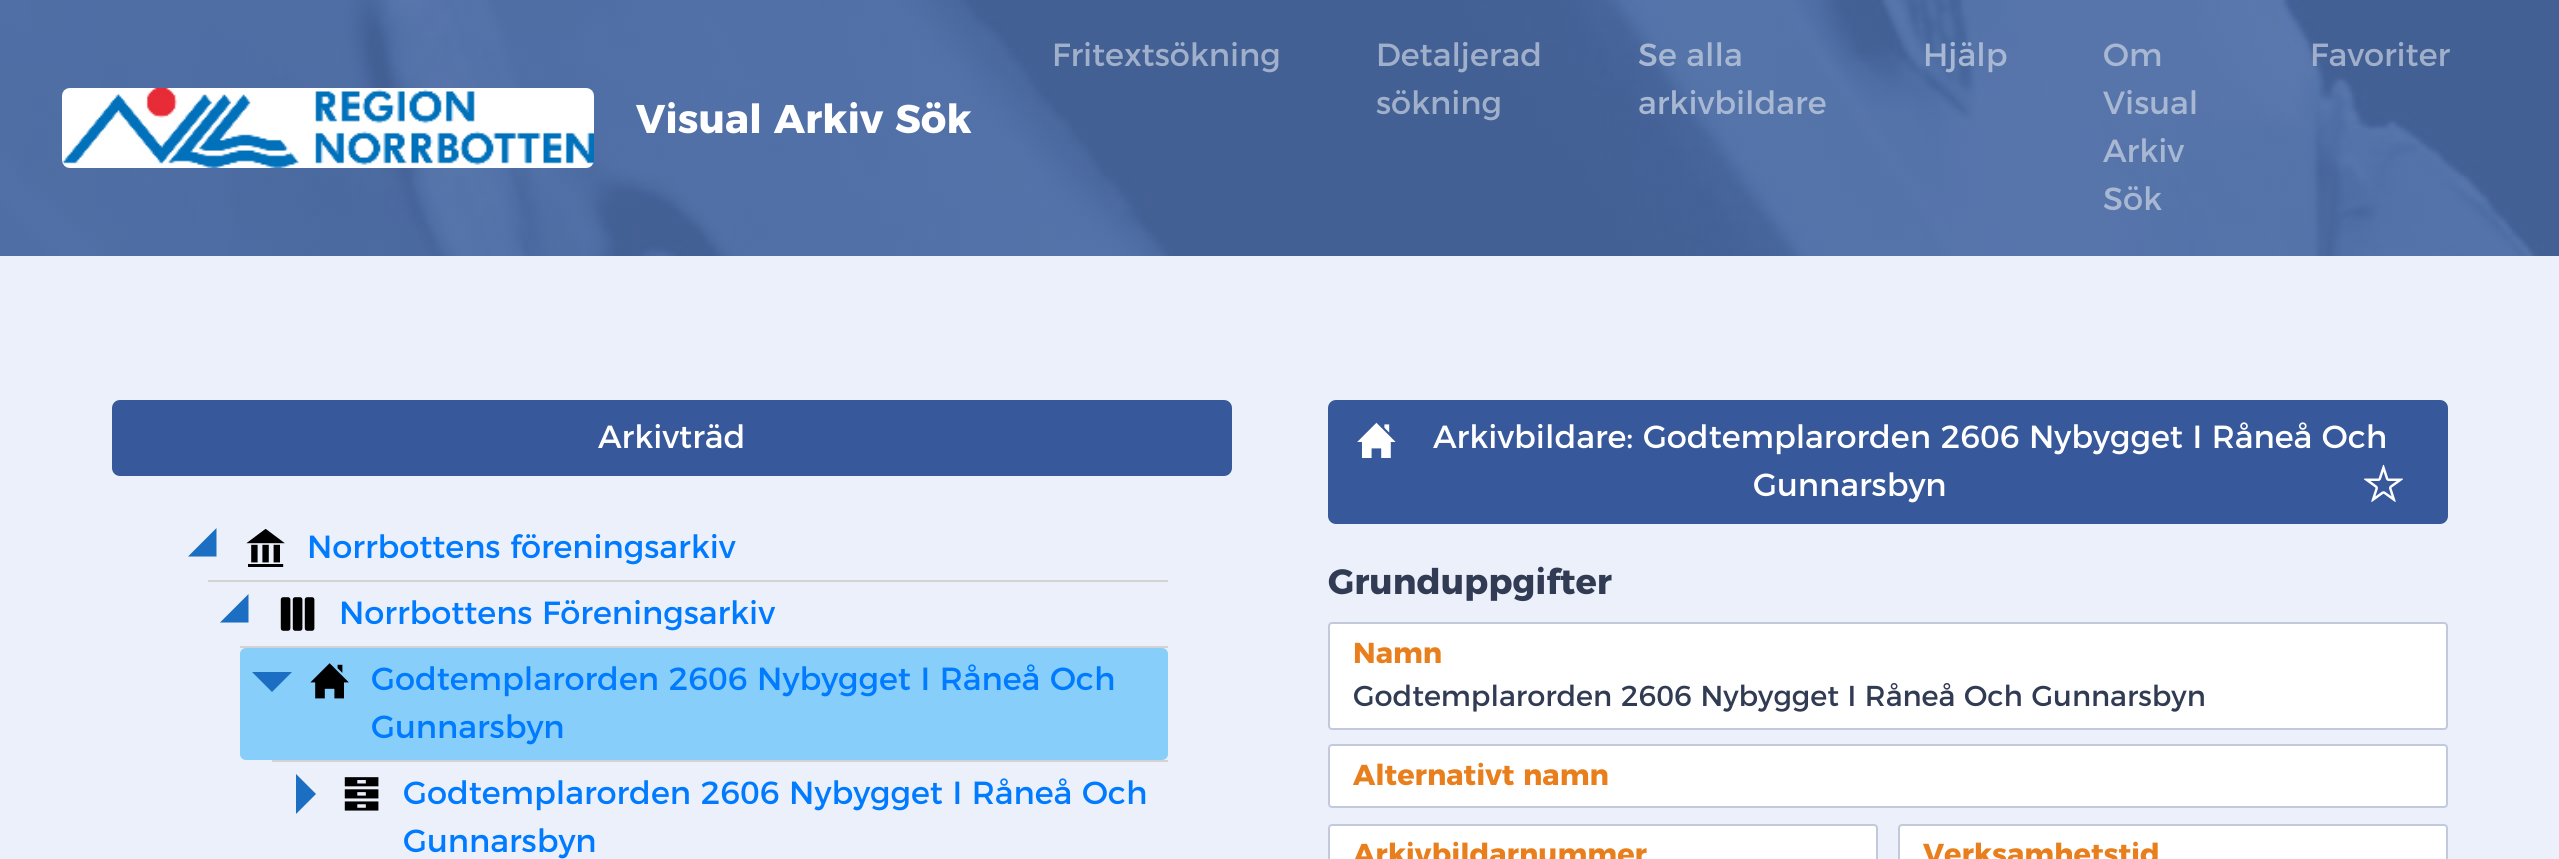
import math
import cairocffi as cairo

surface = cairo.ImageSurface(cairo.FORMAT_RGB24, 2559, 859)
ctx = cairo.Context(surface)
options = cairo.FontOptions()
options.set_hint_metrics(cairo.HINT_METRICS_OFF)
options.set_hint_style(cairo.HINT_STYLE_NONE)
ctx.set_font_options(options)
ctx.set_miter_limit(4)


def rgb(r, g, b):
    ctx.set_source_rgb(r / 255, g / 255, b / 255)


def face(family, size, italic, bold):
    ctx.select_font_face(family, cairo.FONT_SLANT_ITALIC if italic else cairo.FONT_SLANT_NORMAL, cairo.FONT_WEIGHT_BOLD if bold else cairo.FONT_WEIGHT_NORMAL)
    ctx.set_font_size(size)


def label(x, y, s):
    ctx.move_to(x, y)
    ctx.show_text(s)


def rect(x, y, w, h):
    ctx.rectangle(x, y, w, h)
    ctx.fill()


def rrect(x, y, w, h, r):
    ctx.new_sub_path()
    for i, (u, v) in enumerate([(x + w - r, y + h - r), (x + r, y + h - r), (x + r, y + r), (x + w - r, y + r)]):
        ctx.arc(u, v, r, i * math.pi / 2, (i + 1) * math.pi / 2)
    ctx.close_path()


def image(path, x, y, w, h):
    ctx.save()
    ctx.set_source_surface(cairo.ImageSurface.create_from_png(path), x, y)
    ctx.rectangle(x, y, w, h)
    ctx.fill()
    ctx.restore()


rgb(236, 240, 250)
ctx.paint()
image('image0.png', 0, 0, 2559, 256)
image('image1.png', 62, 88, 532, 80)
face('Montserrat', 40, 0, 1)
rgb(255, 255, 255)
label(636, 133, 'Visual Arkiv Sök')
face('Montserrat', 32, 0, 0)
rgb(161, 176, 202)
label(1052, 66, 'Fritextsökning')
label(1376, 66, 'Detaljerad')
label(1376, 114, 'sökning')
rgb(168, 184, 211)
label(1638, 66, 'Se alla')
label(1638, 114, 'arkivbildare')
label(1923, 66, 'Hjälp')
label(2103, 66, 'Om')
label(2103, 114, 'Visual')
label(2103, 162, 'Arkiv')
label(2103, 210, 'Sök')
rgb(161, 176, 202)
label(2310, 66, 'Favoriter')
rgb(55, 88, 154)
rrect(113, 401, 1118, 74, 7)
ctx.fill_preserve()
ctx.stroke()
rgb(255, 255, 255)
label(598, 448, 'Arkivträd')
rgb(27, 110, 194)
ctx.set_fill_rule(cairo.FILL_RULE_EVEN_ODD)
ctx.new_path()
ctx.move_to(216.5, 556.5)
ctx.line_to(188, 556.5)
ctx.line_to(216.5, 528)
ctx.close_path()
ctx.fill()
image('image2.png', 246, 529, 39, 38)
rgb(0, 123, 255)
label(307, 558, 'Norrbottens föreningsarkiv')
rgb(211, 211, 211)
rect(208, 580, 960, 2)
rgb(27, 110, 194)
ctx.new_path()
ctx.move_to(248.5, 622.5)
ctx.line_to(220, 622.5)
ctx.line_to(248.5, 594)
ctx.close_path()
ctx.fill()
image('image3.png', 280, 597, 35, 34)
rgb(0, 123, 255)
label(339, 624, 'Norrbottens Föreningsarkiv')
rgb(211, 211, 211)
rect(240, 646, 928, 2)
rgb(135, 206, 250)
rrect(240, 648, 928, 112, 6)
ctx.fill()
rgb(27, 110, 194)
ctx.new_path()
ctx.move_to(272, 692)
ctx.line_to(252, 672)
ctx.line_to(292, 672)
ctx.close_path()
ctx.fill()
image('image4.png', 310, 663, 39, 36)
rgb(0, 123, 255)
label(371, 690, 'Godtemplarorden 2606 Nybygget I Råneå Och')
label(371, 738, 'Gunnarsbyn')
rgb(211, 211, 211)
rect(272, 760, 896, 2)
rgb(27, 110, 194)
ctx.new_path()
ctx.move_to(316, 794)
ctx.line_to(296, 814)
ctx.line_to(296, 774)
ctx.close_path()
ctx.fill()
image('image5.png', 344, 777, 35, 34)
rgb(0, 123, 255)
label(403, 804, 'Godtemplarorden 2606 Nybygget I Råneå Och')
label(403, 852, 'Gunnarsbyn')
rgb(55, 88, 154)
rrect(1329, 401, 1118, 122, 7)
ctx.fill_preserve()
ctx.stroke()
image('image6.png', 1357, 422, 39, 36)
rgb(255, 255, 255)
label(1433, 448, 'Arkivbildare: Godtemplarorden 2606 Nybygget I Råneå Och')
label(1753, 496, 'Gunnarsbyn')
image('image7.png', 2364, 464, 39, 38)
face('Montserrat', 35.25, 0, 1)
rgb(49, 59, 83)
label(1328, 594, 'Grunduppgifter')
rgb(255, 255, 255)
rrect(1329, 623, 1118, 106, 3)
ctx.fill_preserve()
rgb(194, 201, 219)
ctx.stroke()
face('Montserrat', 28.8, 0, 1)
rgb(232, 127, 28)
label(1353, 663, 'Namn')
face('Montserrat', 28.8, 0, 0)
rgb(49, 59, 83)
label(1353, 706, 'Godtemplarorden 2606 Nybygget I Råneå Och Gunnarsbyn')
rgb(255, 255, 255)
rrect(1329, 745, 1118, 62, 3)
ctx.fill_preserve()
rgb(194, 201, 219)
ctx.stroke()
face('Montserrat', 28.8, 0, 1)
rgb(232, 127, 28)
label(1353, 785, 'Alternativt namn')
rgb(255, 255, 255)
rrect(1329, 825, 548, 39, 3)
ctx.fill_preserve()
rgb(194, 201, 219)
ctx.stroke()
rgb(232, 127, 28)
label(1353, 864, 'Arkivbildarnummer')
rgb(255, 255, 255)
rrect(1899, 825, 548, 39, 3)
ctx.fill_preserve()
rgb(194, 201, 219)
ctx.stroke()
rgb(232, 127, 28)
label(1923, 864, 'Verksamhetstid')
surface.write_to_png('render.png')
